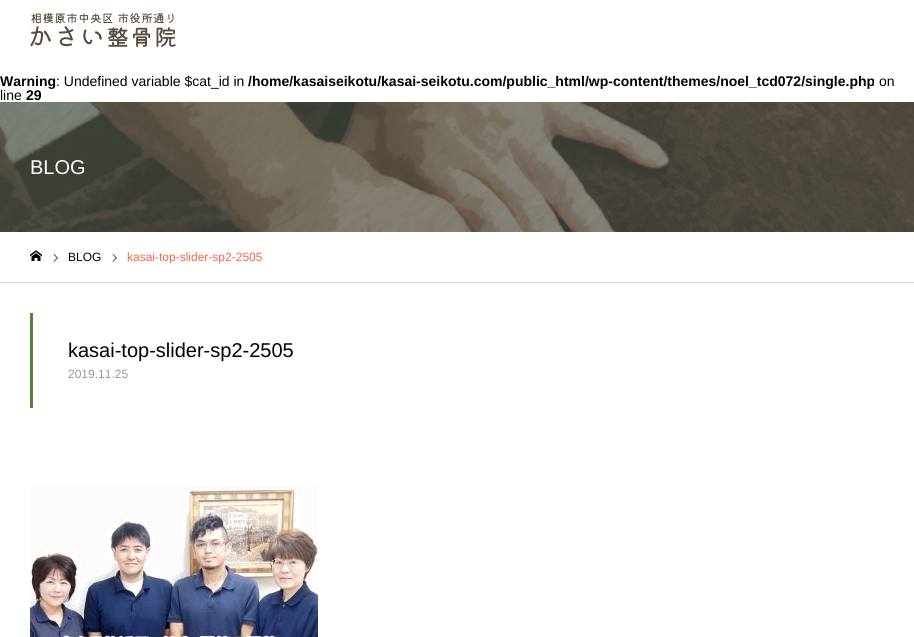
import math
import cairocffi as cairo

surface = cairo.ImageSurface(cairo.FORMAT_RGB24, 914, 637)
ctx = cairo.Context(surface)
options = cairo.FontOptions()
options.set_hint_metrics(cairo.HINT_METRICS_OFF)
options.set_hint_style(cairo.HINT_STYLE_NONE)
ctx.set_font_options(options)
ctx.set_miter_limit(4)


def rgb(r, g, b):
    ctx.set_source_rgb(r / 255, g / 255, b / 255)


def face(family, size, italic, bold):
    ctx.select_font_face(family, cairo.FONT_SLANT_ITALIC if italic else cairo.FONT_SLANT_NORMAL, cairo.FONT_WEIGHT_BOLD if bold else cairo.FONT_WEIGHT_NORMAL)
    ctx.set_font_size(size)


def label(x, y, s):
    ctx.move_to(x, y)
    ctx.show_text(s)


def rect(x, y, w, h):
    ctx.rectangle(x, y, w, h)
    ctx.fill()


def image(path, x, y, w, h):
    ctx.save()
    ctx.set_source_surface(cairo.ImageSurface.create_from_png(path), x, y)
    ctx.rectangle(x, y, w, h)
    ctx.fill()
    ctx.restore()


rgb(255, 255, 255)
ctx.paint()
image('image0.png', 30, 13, 146, 34)
face('Liberation Sans', 14, 0, 1)
rgb(0, 0, 0)
label(0, 86, 'Warning')
face('Liberation Sans', 14, 0, 0)
label(56, 86, ': Undefined variable $cat_id in')
face('Liberation Sans', 14, 0, 1)
label(248, 86, '/home/kasaiseikotu/kasai-seikotu.com/public_html/wp-content/themes/noel_tcd072/single.php')
face('Liberation Sans', 14, 0, 0)
label(879, 86, 'on')
label(0, 100, 'line')
face('Liberation Sans', 14, 0, 1)
label(26, 100, '29')
image('image1.png', 0, 102, 914, 130)
face('Liberation Sans', 20, 0, 0)
rgb(255, 255, 255)
label(30, 174, 'BLOG')
rgb(221, 221, 221)
rect(0, 282, 914, 1)
image('image2.png', 30, 250, 12, 11)
image('image3.png', 53, 254, 5, 8)
face('Liberation Sans', 12, 0, 0)
rgb(0, 0, 0)
label(68, 261, 'BLOG')
image('image3.png', 112, 254, 5, 8)
rgb(255, 98, 74)
label(127, 261, 'kasai-top-slider-sp2-2505')
rgb(86, 130, 64)
rect(30, 313, 3, 95)
face('Liberation Sans', 20, 0, 0)
rgb(0, 0, 0)
label(68, 357, 'kasai-top-slider-sp2-2505')
face('Liberation Sans', 12, 0, 0)
rgb(153, 153, 153)
label(68, 378, '2019.11.25')
image('image4.png', 30, 485, 288, 152)
surface.write_to_png('render.png')
